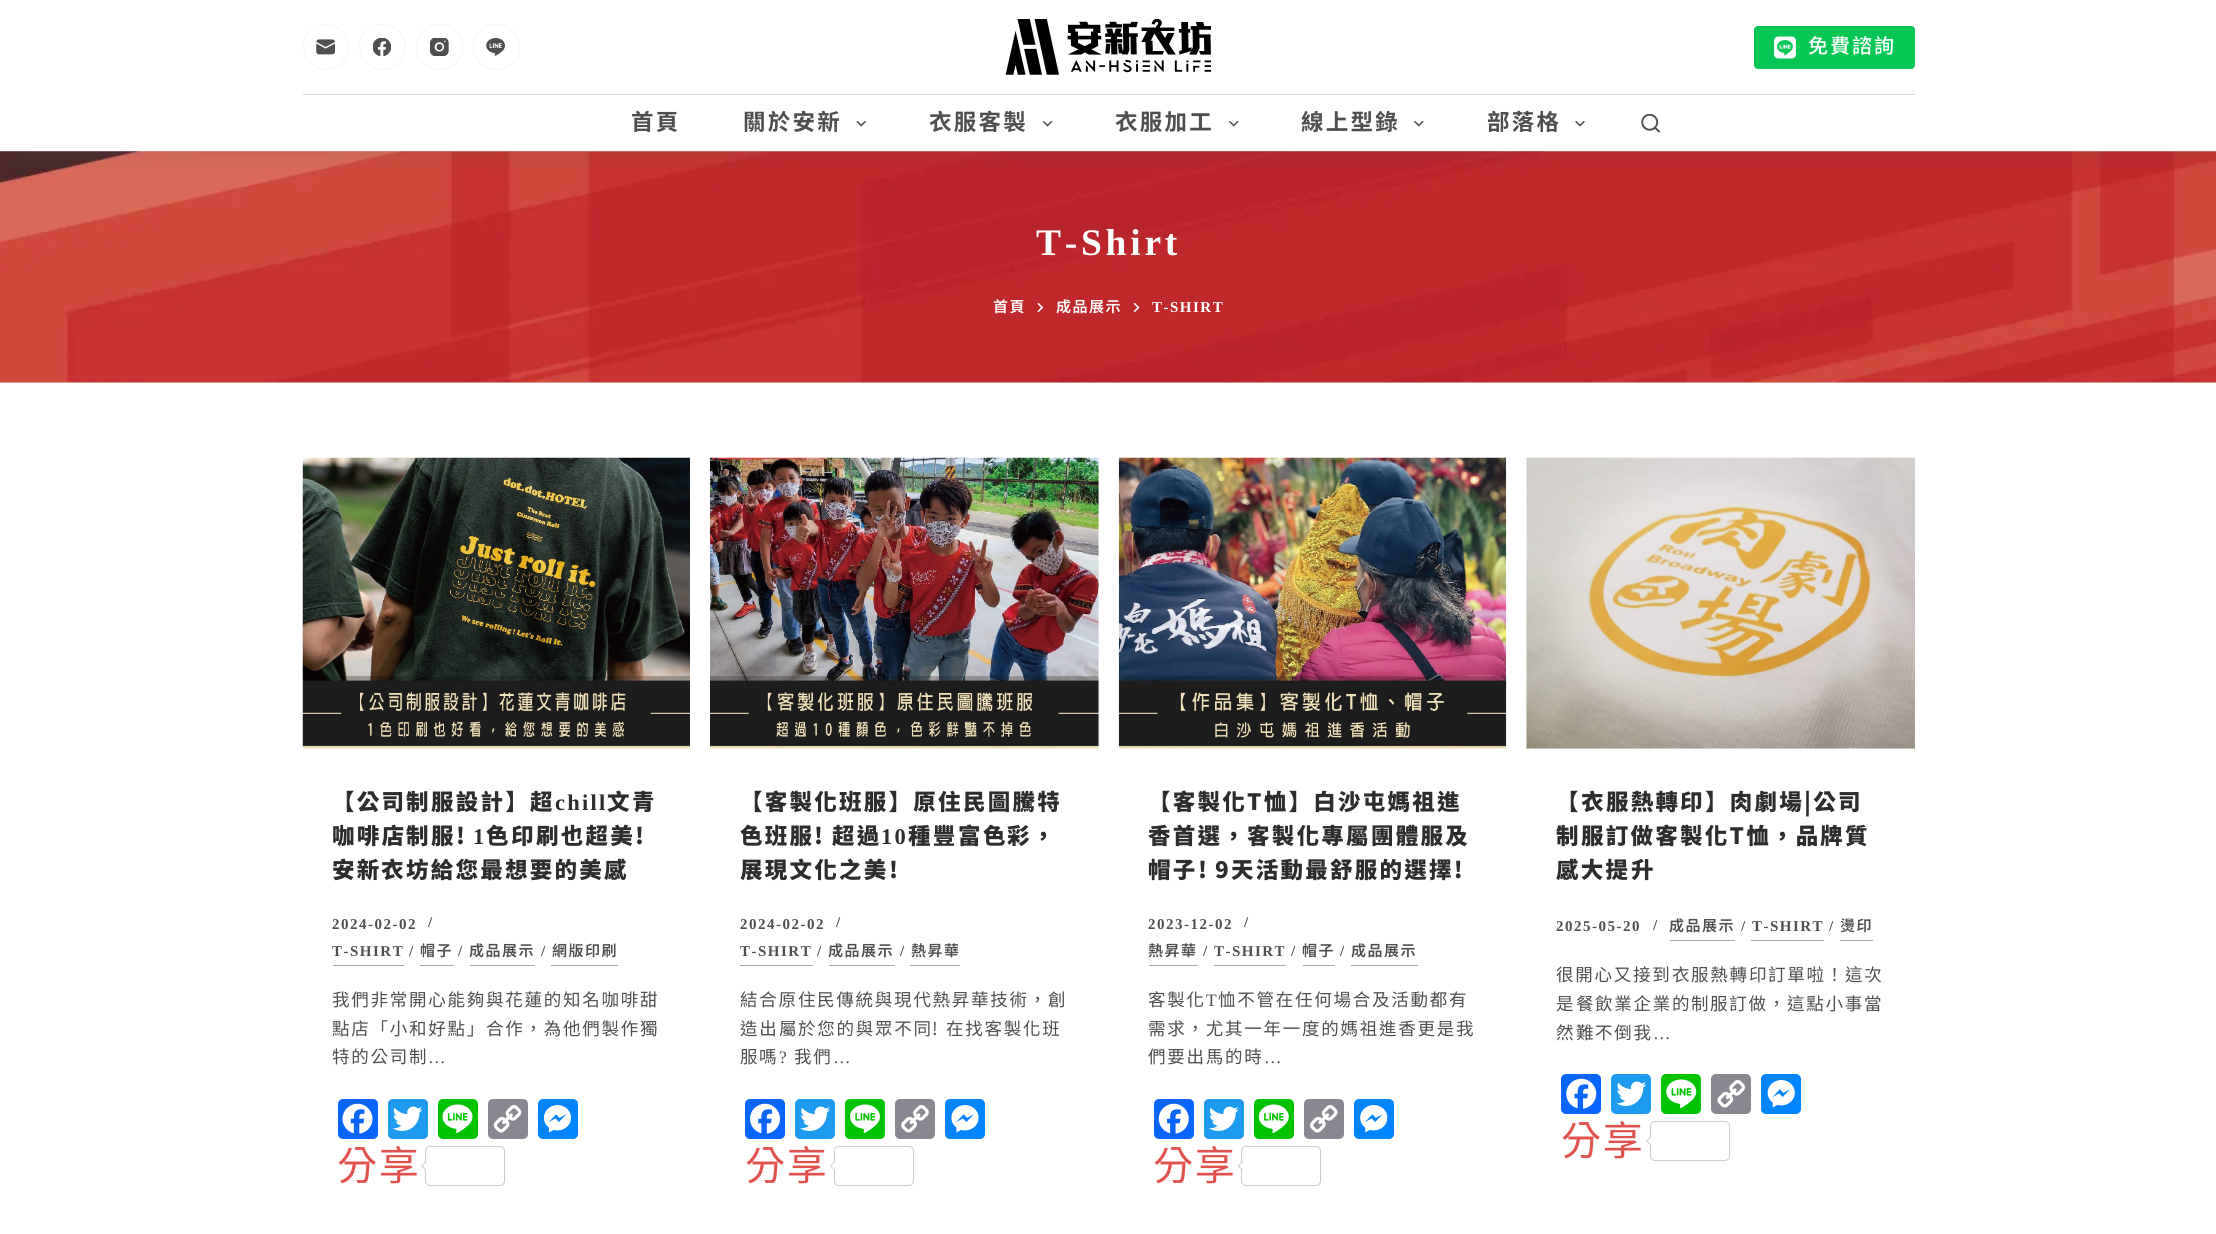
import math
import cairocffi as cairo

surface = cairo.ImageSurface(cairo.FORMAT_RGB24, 2216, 1234)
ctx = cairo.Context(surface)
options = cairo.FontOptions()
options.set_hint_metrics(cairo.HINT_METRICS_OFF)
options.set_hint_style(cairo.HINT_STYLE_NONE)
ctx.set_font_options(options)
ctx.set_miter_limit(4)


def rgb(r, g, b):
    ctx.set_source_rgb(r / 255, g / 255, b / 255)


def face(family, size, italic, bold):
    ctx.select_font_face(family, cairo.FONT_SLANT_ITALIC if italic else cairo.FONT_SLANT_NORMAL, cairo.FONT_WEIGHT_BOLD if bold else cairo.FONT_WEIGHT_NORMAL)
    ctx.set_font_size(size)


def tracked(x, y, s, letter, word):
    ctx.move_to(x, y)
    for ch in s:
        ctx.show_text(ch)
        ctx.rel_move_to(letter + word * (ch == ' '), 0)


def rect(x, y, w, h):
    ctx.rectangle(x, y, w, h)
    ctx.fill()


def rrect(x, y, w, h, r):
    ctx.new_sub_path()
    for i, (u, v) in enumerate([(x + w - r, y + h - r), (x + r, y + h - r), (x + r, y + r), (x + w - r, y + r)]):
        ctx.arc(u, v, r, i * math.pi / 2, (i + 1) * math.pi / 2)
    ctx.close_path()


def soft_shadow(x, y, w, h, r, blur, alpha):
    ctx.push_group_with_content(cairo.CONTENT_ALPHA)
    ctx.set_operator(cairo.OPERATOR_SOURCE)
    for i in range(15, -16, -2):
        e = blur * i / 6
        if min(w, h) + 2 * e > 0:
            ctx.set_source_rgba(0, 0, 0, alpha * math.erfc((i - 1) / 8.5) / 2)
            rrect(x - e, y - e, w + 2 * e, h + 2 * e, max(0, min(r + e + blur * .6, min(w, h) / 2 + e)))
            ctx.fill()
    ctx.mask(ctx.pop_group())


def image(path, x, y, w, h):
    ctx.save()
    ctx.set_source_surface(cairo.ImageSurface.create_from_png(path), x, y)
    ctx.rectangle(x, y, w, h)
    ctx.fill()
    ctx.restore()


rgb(255, 255, 255)
ctx.paint()
rgb(245, 239, 239)
rect(0, 151, 2216, 232)
image('image11.png', 0, 151, 2216, 232)
ctx.save()
ctx.rectangle(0, 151, 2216, 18)
ctx.clip()
rgb(79, 79, 79)
soft_shadow(0, 95, 2216, 58, 0, 12.5, 0.2)
ctx.restore()
rgb(255, 255, 255)
rect(0, 77, 2216, 17)
ctx.arc(326, 47, 22.5, 0, 2 * math.pi)
rgb(244, 245, 247)
ctx.set_line_width(1)
ctx.stroke()
image('image0.png', 316, 39, 19, 16)
rrect(359.5, 24.5, 46, 45, 22.5)
ctx.stroke()
image('image1.png', 373, 38, 18, 18)
rrect(416.5, 24.5, 46, 45, 22.5)
ctx.stroke()
image('image2.png', 430, 38, 19, 18)
rrect(473.5, 24.5, 46, 45, 22.5)
ctx.stroke()
image('image3.png', 486, 38, 19, 18)
image('image4.png', 1005, 19, 206, 56)
rgb(6, 199, 85)
rrect(1754, 26, 161, 43, 4)
ctx.fill()
image('image5.png', 1774, 36, 22, 23)
face('Noto Sans TC Medium', 20, 0, 0)
rgb(255, 255, 255)
tracked(1808, 53, '免費諮詢', 2, 0)
rgb(213, 216, 220)
rect(303, 94, 1612, 1)
face('Noto Sans TC', 22.5, 0, 1)
rgb(79, 79, 79)
tracked(631, 130, '首頁', 2.25, 0)
tracked(743, 130, '關於安新', 2.25, 0)
image('image6.png', 856, 121, 10, 6)
face('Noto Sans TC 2', 22.5, 0, 1)
tracked(929, 130, '衣服客製', 2.25, 0)
image('image7.png', 1043, 121, 10, 6)
tracked(1115, 130, '衣服加工', 2.25, 0)
image('image8.png', 1229, 121, 10, 6)
face('Noto Sans TC', 22.5, 0, 1)
tracked(1301, 130, '線上型錄', 2.25, 0)
image('image8.png', 1414, 121, 10, 6)
face('Noto Sans TC 2', 22.5, 0, 1)
tracked(1487, 130, '部落格', 2.25, 0)
image('image9.png', 1575, 121, 10, 6)
image('image10.png', 1641, 114, 19, 19)
face('Liberation Serif', 37.5, 0, 1)
rgb(255, 255, 255)
tracked(1036, 255, 'T-Shirt', 3.75, 0)
face('Noto Sans TC SemiBold', 15, 0, 0)
tracked(993, 312, '首頁', 1.5, 0)
image('image12.png', 1037, 303, 7, 10)
face('Noto Sans TC 2 SemiBold', 15, 0, 0)
tracked(1056, 312, '成品展示', 1.5, 0)
image('image13.png', 1133, 303, 7, 10)
face('Liberation Serif', 15, 0, 1)
tracked(1152, 312, 'T-SHIRT', 1.5, 0)
image('image14.png', 302, 457, 388, 292)
face('Noto Sans TC Black', 22.5, 0, 0)
rgb(45, 45, 45)
tracked(332, 810, '【公司', 2.25, 0)
face('Noto Sans TC 2 Black', 22.5, 0, 0)
tracked(406, 810, '制', 2.25, 0)
face('Noto Sans TC Black', 22.5, 0, 0)
tracked(431, 810, '服設計】超', 2.25, 0)
face('Liberation Serif', 22.5, 0, 1)
tracked(555, 810, 'chill', 2.25, 0)
face('Noto Sans TC Black', 22.5, 0, 0)
tracked(607, 810, '文', 2.25, 0)
face('Noto Sans TC 2 Black', 22.5, 0, 0)
tracked(632, 810, '青', 2.25, 0)
face('Noto Sans TC Black', 22.5, 0, 0)
tracked(332, 844, '咖啡店', 2.25, 0)
face('Noto Sans TC 2 Black', 22.5, 0, 0)
tracked(406, 844, '制', 2.25, 0)
face('Noto Sans TC Black', 22.5, 0, 0)
tracked(431, 844, '服', 2.25, 0)
face('Noto Sans TC 2 Black', 22.5, 0, 0)
tracked(456, 844, '!', 2.25, 0)
face('Liberation Serif', 22.5, 0, 1)
tracked(473, 844, '1', 2.25, 0)
face('Noto Sans TC Black', 22.5, 0, 0)
tracked(486, 844, '色', 2.25, 0)
face('Noto Sans TC 2 Black', 22.5, 0, 0)
tracked(511, 844, '印', 2.25, 0)
face('Noto Sans TC Black', 22.5, 0, 0)
tracked(536, 844, '刷也超美', 2.25, 0)
face('Noto Sans TC 2 Black', 22.5, 0, 0)
tracked(635, 844, '!', 2.25, 0)
face('Noto Sans TC Black', 22.5, 0, 0)
tracked(332, 878, '安新', 2.25, 0)
face('Noto Sans TC 2 Black', 22.5, 0, 0)
tracked(381, 878, '衣', 2.25, 0)
face('Noto Sans TC Black', 22.5, 0, 0)
tracked(406, 878, '坊給您最想要的美感', 2.25, 0)
face('Liberation Serif', 15, 0, 1)
rgb(79, 79, 79)
tracked(332, 929, '2024-02-02', 1.5, 0)
tracked(428, 927, '/', 1.5, 0)
tracked(332, 956, 'T-SHIRT', 1.5, 0)
rgb(167, 167, 167)
rect(333, 965, 71, 1)
rgb(79, 79, 79)
tracked(409, 956, '/', 1.5, 0)
face('Noto Sans TC SemiBold', 15, 0, 0)
tracked(420, 956, '帽子', 1.5, 0)
rgb(167, 167, 167)
rect(420, 965, 34, 1)
face('Liberation Serif', 15, 0, 1)
rgb(79, 79, 79)
tracked(458, 956, '/', 1.5, 0)
face('Noto Sans TC 2 SemiBold', 15, 0, 0)
tracked(469, 956, '成品展示', 1.5, 0)
rgb(167, 167, 167)
rect(470, 965, 65, 1)
face('Liberation Serif', 15, 0, 1)
rgb(79, 79, 79)
tracked(541, 956, '/', 1.5, 0)
face('Noto Sans TC SemiBold', 15, 0, 0)
tracked(552, 956, '網版印刷', 1.5, 0)
rgb(167, 167, 167)
rect(551, 965, 67, 1)
face('Noto Sans CJK TC', 17.5, 0, 0)
rgb(79, 79, 79)
tracked(332, 1006, '我們非常開心能夠與花蓮的知名咖啡甜', 1.75, 0)
tracked(332, 1035, '點店「小和好點」合作，為他們製作', 1.75, 0)
face('Noto Sans TC', 17.5, 0, 0)
tracked(640, 1035, '獨', 1.75, 0)
face('Noto Sans CJK TC', 17.5, 0, 0)
tracked(332, 1063, '特的公司', 1.75, 0)
face('Noto Sans TC', 17.5, 0, 0)
tracked(409, 1063, '制', 1.75, 0)
face('Liberation Serif', 17.5, 0, 0)
tracked(428, 1063, '…', 1.75, 0)
rgb(8, 102, 255)
rrect(338, 1099, 40, 40, 5)
ctx.fill()
image('image15.png', 342, 1103, 31, 31)
rgb(29, 155, 240)
rrect(388, 1099, 40, 40, 5)
ctx.fill()
image('image16.png', 392, 1106, 31, 25)
rgb(0, 195, 0)
rrect(438, 1099, 40, 40, 5)
ctx.fill()
image('image17.png', 442, 1104, 31, 29)
rgb(136, 137, 144)
rrect(488, 1099, 40, 40, 5)
ctx.fill()
image('image18.png', 493, 1105, 29, 28)
rgb(0, 132, 255)
rrect(538, 1099, 40, 40, 5)
ctx.fill()
image('image19.png', 543, 1105, 29, 28)
face('Noto Sans CJK TC', 40, 0, 0)
rgb(225, 82, 77)
tracked(337, 1180, '分享', 1.75, 0)
rrect(425.5, 1146.5, 79, 39, 4.5)
rgb(204, 204, 204)
ctx.stroke()
ctx.new_path()
ctx.move_to(426, 1161)
ctx.line_to(426, 1171)
ctx.line_to(421, 1166)
ctx.close_path()
ctx.fill()
rgb(255, 255, 255)
ctx.new_path()
ctx.move_to(427.5, 1161)
ctx.line_to(427.5, 1171)
ctx.line_to(422.5, 1166)
ctx.close_path()
ctx.fill()
image('image20.png', 710, 457, 389, 292)
face('Noto Sans TC Black', 22.5, 0, 0)
rgb(45, 45, 45)
tracked(740, 810, '【客製化班服】原', 2.25, 0)
face('Noto Sans TC 2 Black', 22.5, 0, 0)
tracked(938, 810, '住', 2.25, 0)
face('Noto Sans TC Black', 22.5, 0, 0)
tracked(963, 810, '民圖騰特', 2.25, 0)
tracked(740, 844, '色班服', 2.25, 0)
face('Noto Sans TC 2 Black', 22.5, 0, 0)
tracked(814, 844, '!', 2.25, 0)
face('Noto Sans TC Black', 22.5, 0, 0)
tracked(832, 844, '超過', 2.25, 0)
face('Liberation Serif', 22.5, 0, 1)
tracked(881, 844, '10', 2.25, 0)
face('Noto Sans TC Black', 22.5, 0, 0)
tracked(908, 844, '種豐', 2.25, 0)
face('Noto Sans TC 2 Black', 22.5, 0, 0)
tracked(958, 844, '富', 2.25, 0)
face('Noto Sans TC Black', 22.5, 0, 0)
tracked(983, 844, '色', 2.25, 0)
face('Noto Sans TC 2 Black', 22.5, 0, 0)
tracked(1007, 844, '彩', 2.25, 0)
face('Noto Sans TC Black', 22.5, 0, 0)
tracked(1032, 844, '，', 2.25, 0)
tracked(740, 878, '展現文化之美', 2.25, 0)
face('Noto Sans TC 2 Black', 22.5, 0, 0)
tracked(889, 878, '!', 2.25, 0)
face('Liberation Serif', 15, 0, 1)
rgb(79, 79, 79)
tracked(740, 929, '2024-02-02', 1.5, 0)
tracked(836, 927, '/', 1.5, 0)
tracked(740, 956, 'T-SHIRT', 1.5, 0)
rgb(167, 167, 167)
rect(740, 965, 73, 1)
rgb(79, 79, 79)
tracked(817, 956, '/', 1.5, 0)
face('Noto Sans TC 2 SemiBold', 15, 0, 0)
tracked(828, 956, '成品展示', 1.5, 0)
rgb(167, 167, 167)
rect(829, 965, 66, 1)
face('Liberation Serif', 15, 0, 1)
rgb(79, 79, 79)
tracked(900, 956, '/', 1.5, 0)
face('Noto Sans TC SemiBold', 15, 0, 0)
tracked(911, 956, '熱昇華', 1.5, 0)
rgb(167, 167, 167)
rect(910, 965, 50, 1)
face('Noto Sans CJK TC', 17.5, 0, 0)
rgb(79, 79, 79)
tracked(740, 1006, '結合原', 1.75, 0)
face('Noto Sans TC', 17.5, 0, 0)
tracked(798, 1006, '住', 1.75, 0)
face('Noto Sans CJK TC', 17.5, 0, 0)
tracked(817, 1006, '民傳統與現代熱昇華技術，創', 1.75, 0)
tracked(740, 1035, '造出', 1.75, 0)
face('Noto Sans TC', 17.5, 0, 0)
tracked(779, 1035, '屬', 1.75, 0)
face('Noto Sans CJK TC', 17.5, 0, 0)
tracked(798, 1035, '於您的與眾不同', 1.75, 0)
face('Noto Sans TC', 17.5, 0, 0)
tracked(932, 1035, '!', 1.75, 0)
face('Noto Sans CJK TC', 17.5, 0, 0)
tracked(946, 1035, '在找客製化班', 1.75, 0)
tracked(740, 1063, '服', 1.75, 0)
face('Noto Sans TC', 17.5, 0, 0)
tracked(759, 1063, '嗎', 1.75, 0)
face('Liberation Serif', 17.5, 0, 0)
tracked(779, 1063, '?', 1.75, 0)
face('Noto Sans CJK TC', 17.5, 0, 0)
tracked(794, 1063, '我們', 1.75, 0)
face('Liberation Serif', 17.5, 0, 0)
tracked(833, 1063, '…', 1.75, 0)
rgb(8, 102, 255)
rrect(745, 1099, 40, 40, 5)
ctx.fill()
image('image21.png', 750, 1103, 30, 31)
rgb(29, 155, 240)
rrect(795, 1099, 40, 40, 5)
ctx.fill()
image('image22.png', 800, 1106, 30, 25)
rgb(0, 195, 0)
rrect(845, 1099, 40, 40, 5)
ctx.fill()
image('image23.png', 850, 1104, 30, 29)
rgb(136, 137, 144)
rrect(895, 1099, 40, 40, 5)
ctx.fill()
image('image24.png', 901, 1105, 28, 28)
rgb(0, 132, 255)
rrect(945, 1099, 40, 40, 5)
ctx.fill()
image('image25.png', 951, 1105, 28, 28)
face('Noto Sans CJK TC', 40, 0, 0)
rgb(225, 82, 77)
tracked(745, 1180, '分享', 1.75, 0)
rrect(834.5, 1146.5, 79, 39, 4.5)
rgb(204, 204, 204)
ctx.stroke()
ctx.new_path()
ctx.move_to(835, 1161)
ctx.line_to(835, 1171)
ctx.line_to(830, 1166)
ctx.close_path()
ctx.fill()
rgb(255, 255, 255)
ctx.new_path()
ctx.move_to(836, 1161)
ctx.line_to(836, 1171)
ctx.line_to(831, 1166)
ctx.close_path()
ctx.fill()
image('image26.png', 1118, 457, 389, 292)
face('Noto Sans TC Black', 22.5, 0, 0)
rgb(45, 45, 45)
tracked(1148, 810, '【客製化T恤】白沙屯媽祖進', 2.25, 0)
tracked(1148, 844, '香首選，客製化專', 2.25, 0)
face('Noto Sans TC 2 Black', 22.5, 0, 0)
tracked(1346, 844, '屬', 2.25, 0)
face('Noto Sans TC Black', 22.5, 0, 0)
tracked(1371, 844, '團體服及', 2.25, 0)
tracked(1148, 878, '帽子', 2.25, 0)
face('Noto Sans TC 2 Black', 22.5, 0, 0)
tracked(1198, 878, '!', 2.25, 0)
face('Noto Sans TC Black', 22.5, 0, 0)
tracked(1215, 878, '9天活動最舒服的選', 2.25, 0)
face('Noto Sans TC 2 Black', 22.5, 0, 0)
tracked(1429, 878, '擇!', 2.25, 0)
face('Liberation Serif', 15, 0, 1)
rgb(79, 79, 79)
tracked(1148, 929, '2023-12-02', 1.5, 0)
tracked(1244, 927, '/', 1.5, 0)
face('Noto Sans TC SemiBold', 15, 0, 0)
tracked(1148, 956, '熱昇華', 1.5, 0)
rgb(167, 167, 167)
rect(1149, 965, 49, 1)
face('Liberation Serif', 15, 0, 1)
rgb(79, 79, 79)
tracked(1203, 956, '/ T-SHIRT', 1.5, 0)
tracked(1291, 956, '/', 1.5, 0)
face('Noto Sans TC SemiBold', 15, 0, 0)
tracked(1302, 956, '帽子', 1.5, 0)
rgb(167, 167, 167)
rect(1303, 965, 32, 1)
face('Liberation Serif', 15, 0, 1)
rgb(79, 79, 79)
tracked(1340, 956, '/', 1.5, 0)
face('Noto Sans TC 2 SemiBold', 15, 0, 0)
tracked(1351, 956, '成品展示', 1.5, 0)
rgb(167, 167, 167)
rect(1351, 965, 67, 1)
rect(1214, 965, 72, 1)
face('Noto Sans CJK TC', 17.5, 0, 0)
rgb(79, 79, 79)
tracked(1148, 1006, '客製化', 1.75, 0)
face('Liberation Serif', 17.5, 0, 0)
tracked(1206, 1006, 'T', 1.75, 0)
face('Noto Sans CJK TC', 17.5, 0, 0)
tracked(1218, 1006, '恤不管在任何場合及活動都有', 1.75, 0)
tracked(1148, 1035, '需求，尤其一年一度的媽祖進香更是我', 1.75, 0)
tracked(1148, 1063, '們要出馬的時', 1.75, 0)
face('Liberation Serif', 17.5, 0, 0)
tracked(1264, 1063, '…', 1.75, 0)
rgb(8, 102, 255)
rrect(1154, 1099, 40, 40, 5)
ctx.fill()
image('image27.png', 1158, 1103, 31, 31)
rgb(29, 155, 240)
rrect(1204, 1099, 40, 40, 5)
ctx.fill()
image('image28.png', 1209, 1106, 30, 25)
rgb(0, 195, 0)
rrect(1254, 1099, 40, 40, 5)
ctx.fill()
image('image29.png', 1258, 1104, 31, 29)
rgb(136, 137, 144)
rrect(1304, 1099, 40, 40, 5)
ctx.fill()
image('image30.png', 1310, 1105, 28, 28)
rgb(0, 132, 255)
rrect(1354, 1099, 40, 40, 5)
ctx.fill()
image('image31.png', 1360, 1105, 28, 28)
face('Noto Sans CJK TC', 40, 0, 0)
rgb(225, 82, 77)
tracked(1153, 1180, '分享', 1.75, 0)
rrect(1241.5, 1146.5, 79, 39, 4.5)
rgb(204, 204, 204)
ctx.stroke()
ctx.new_path()
ctx.move_to(1242.5, 1161)
ctx.line_to(1242.5, 1171)
ctx.line_to(1237.5, 1166)
ctx.close_path()
ctx.fill()
rgb(255, 255, 255)
ctx.new_path()
ctx.move_to(1244, 1161)
ctx.line_to(1244, 1171)
ctx.line_to(1239, 1166)
ctx.close_path()
ctx.fill()
image('image32.png', 1526, 457, 389, 292)
face('Noto Sans TC Black', 22.5, 0, 0)
rgb(45, 45, 45)
tracked(1556, 810, '【', 2.25, 0)
face('Noto Sans TC 2 Black', 22.5, 0, 0)
tracked(1581, 810, '衣', 2.25, 0)
face('Noto Sans TC Black', 22.5, 0, 0)
tracked(1606, 810, '服熱轉', 2.25, 0)
face('Noto Sans TC 2 Black', 22.5, 0, 0)
tracked(1680, 810, '印', 2.25, 0)
face('Noto Sans TC Black', 22.5, 0, 0)
tracked(1705, 810, '】肉劇場|公司', 2.25, 0)
face('Noto Sans TC 2 Black', 22.5, 0, 0)
tracked(1556, 844, '制', 2.25, 0)
face('Noto Sans TC Black', 22.5, 0, 0)
tracked(1581, 844, '服訂做客製化T恤，品', 2.25, 0)
face('Noto Sans TC 2 Black', 22.5, 0, 0)
tracked(1820, 844, '牌', 2.25, 0)
face('Noto Sans TC Black', 22.5, 0, 0)
tracked(1845, 844, '質', 2.25, 0)
tracked(1556, 878, '感大提', 2.25, 0)
face('Noto Sans TC 2 Black', 22.5, 0, 0)
tracked(1631, 878, '升', 2.25, 0)
face('Liberation Serif', 15, 0, 1)
rgb(79, 79, 79)
tracked(1556, 931, '2025-05-20', 1.5, 0)
tracked(1653, 930, '/', 1.5, 0)
face('Noto Sans TC 2 SemiBold', 15, 0, 0)
tracked(1669, 931, '成品展示', 1.5, 0)
rgb(167, 167, 167)
rect(1670, 940, 65, 1)
face('Liberation Serif', 15, 0, 1)
rgb(79, 79, 79)
tracked(1741, 931, '/ T-SHIRT', 1.5, 0)
tracked(1829, 931, '/', 1.5, 0)
face('Noto Sans TC SemiBold', 15, 0, 0)
tracked(1840, 931, '燙印', 1.5, 0)
rgb(167, 167, 167)
rect(1840, 940, 33, 1)
rect(1751, 940, 73, 1)
face('Noto Sans CJK TC', 17.5, 0, 0)
rgb(79, 79, 79)
tracked(1556, 981, '很開心又接到', 1.75, 0)
face('Noto Sans TC', 17.5, 0, 0)
tracked(1672, 981, '衣', 1.75, 0)
face('Noto Sans CJK TC', 17.5, 0, 0)
tracked(1691, 981, '服熱轉', 1.75, 0)
face('Noto Sans TC', 17.5, 0, 0)
tracked(1749, 981, '印', 1.75, 0)
face('Noto Sans CJK TC', 17.5, 0, 0)
tracked(1768, 981, '訂單啦！這次', 1.75, 0)
tracked(1556, 1010, '是', 1.75, 0)
face('Noto Sans TC', 17.5, 0, 0)
tracked(1576, 1010, '餐', 1.75, 0)
face('Noto Sans CJK TC', 17.5, 0, 0)
tracked(1595, 1010, '飲業企業的', 1.75, 0)
face('Noto Sans TC', 17.5, 0, 0)
tracked(1691, 1010, '制', 1.75, 0)
face('Noto Sans CJK TC', 17.5, 0, 0)
tracked(1710, 1010, '服訂做，這點小事當', 1.75, 0)
tracked(1556, 1039, '然', 1.75, 0)
face('Noto Sans TC', 17.5, 0, 0)
tracked(1576, 1039, '難', 1.75, 0)
face('Noto Sans CJK TC', 17.5, 0, 0)
tracked(1595, 1039, '不倒我', 1.75, 0)
face('Liberation Serif', 17.5, 0, 0)
tracked(1653, 1039, '…', 1.75, 0)
rgb(8, 102, 255)
rrect(1561, 1074, 40, 40, 5)
ctx.fill()
image('image33.png', 1566, 1078, 31, 31)
rgb(29, 155, 240)
rrect(1611, 1074, 40, 40, 5)
ctx.fill()
image('image34.png', 1616, 1081, 31, 25)
rgb(0, 195, 0)
rrect(1661, 1074, 40, 40, 5)
ctx.fill()
image('image35.png', 1666, 1079, 31, 29)
rgb(136, 137, 144)
rrect(1711, 1074, 40, 40, 5)
ctx.fill()
image('image36.png', 1717, 1080, 28, 28)
rgb(0, 132, 255)
rrect(1761, 1074, 40, 40, 5)
ctx.fill()
image('image37.png', 1767, 1080, 28, 28)
face('Noto Sans CJK TC', 40, 0, 0)
rgb(225, 82, 77)
tracked(1561, 1155, '分享', 1.75, 0)
rrect(1650.5, 1121.5, 79, 39, 4.5)
rgb(204, 204, 204)
ctx.stroke()
ctx.new_path()
ctx.move_to(1651, 1136)
ctx.line_to(1651, 1146)
ctx.line_to(1646, 1141)
ctx.close_path()
ctx.fill()
rgb(255, 255, 255)
ctx.new_path()
ctx.move_to(1652.5, 1136)
ctx.line_to(1652.5, 1146)
ctx.line_to(1647.5, 1141)
ctx.close_path()
ctx.fill()
surface.write_to_png('render.png')
